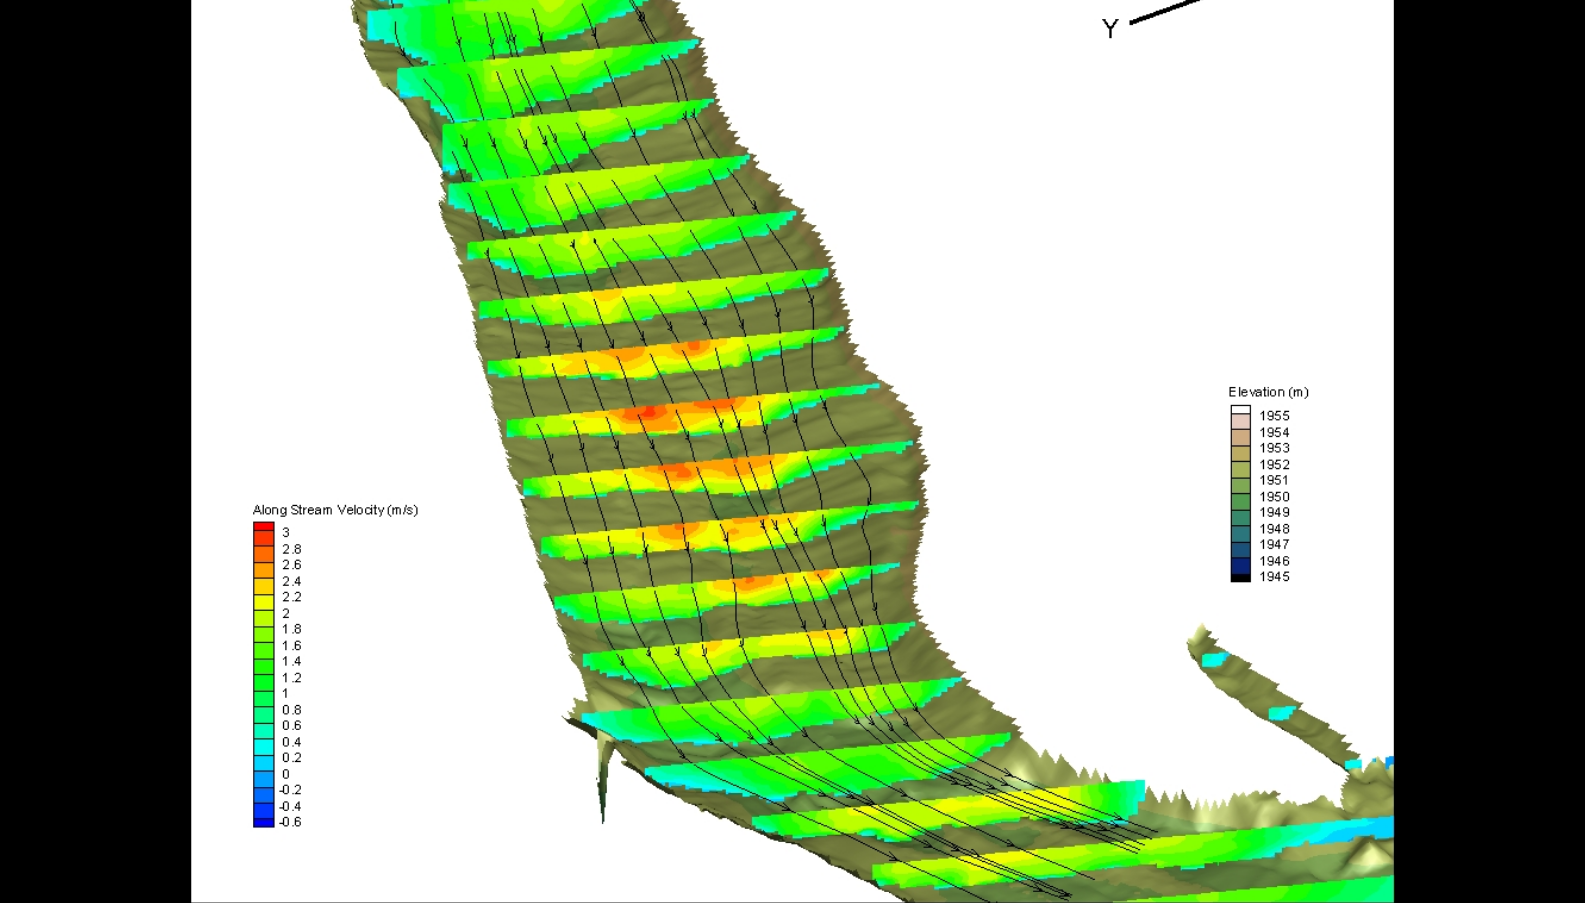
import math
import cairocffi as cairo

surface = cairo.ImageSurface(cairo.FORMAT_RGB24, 1585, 903)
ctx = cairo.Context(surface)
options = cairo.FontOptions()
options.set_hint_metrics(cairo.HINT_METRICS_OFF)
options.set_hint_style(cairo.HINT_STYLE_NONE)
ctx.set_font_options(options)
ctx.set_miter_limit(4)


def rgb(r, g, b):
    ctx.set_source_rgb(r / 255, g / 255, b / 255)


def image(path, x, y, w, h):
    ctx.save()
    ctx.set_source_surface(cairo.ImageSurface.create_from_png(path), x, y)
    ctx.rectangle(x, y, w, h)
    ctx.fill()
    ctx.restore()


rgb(0, 0, 0)
ctx.paint()
image('image0.png', 191, 0, 1204, 903)
surface.write_to_png('render.png')
